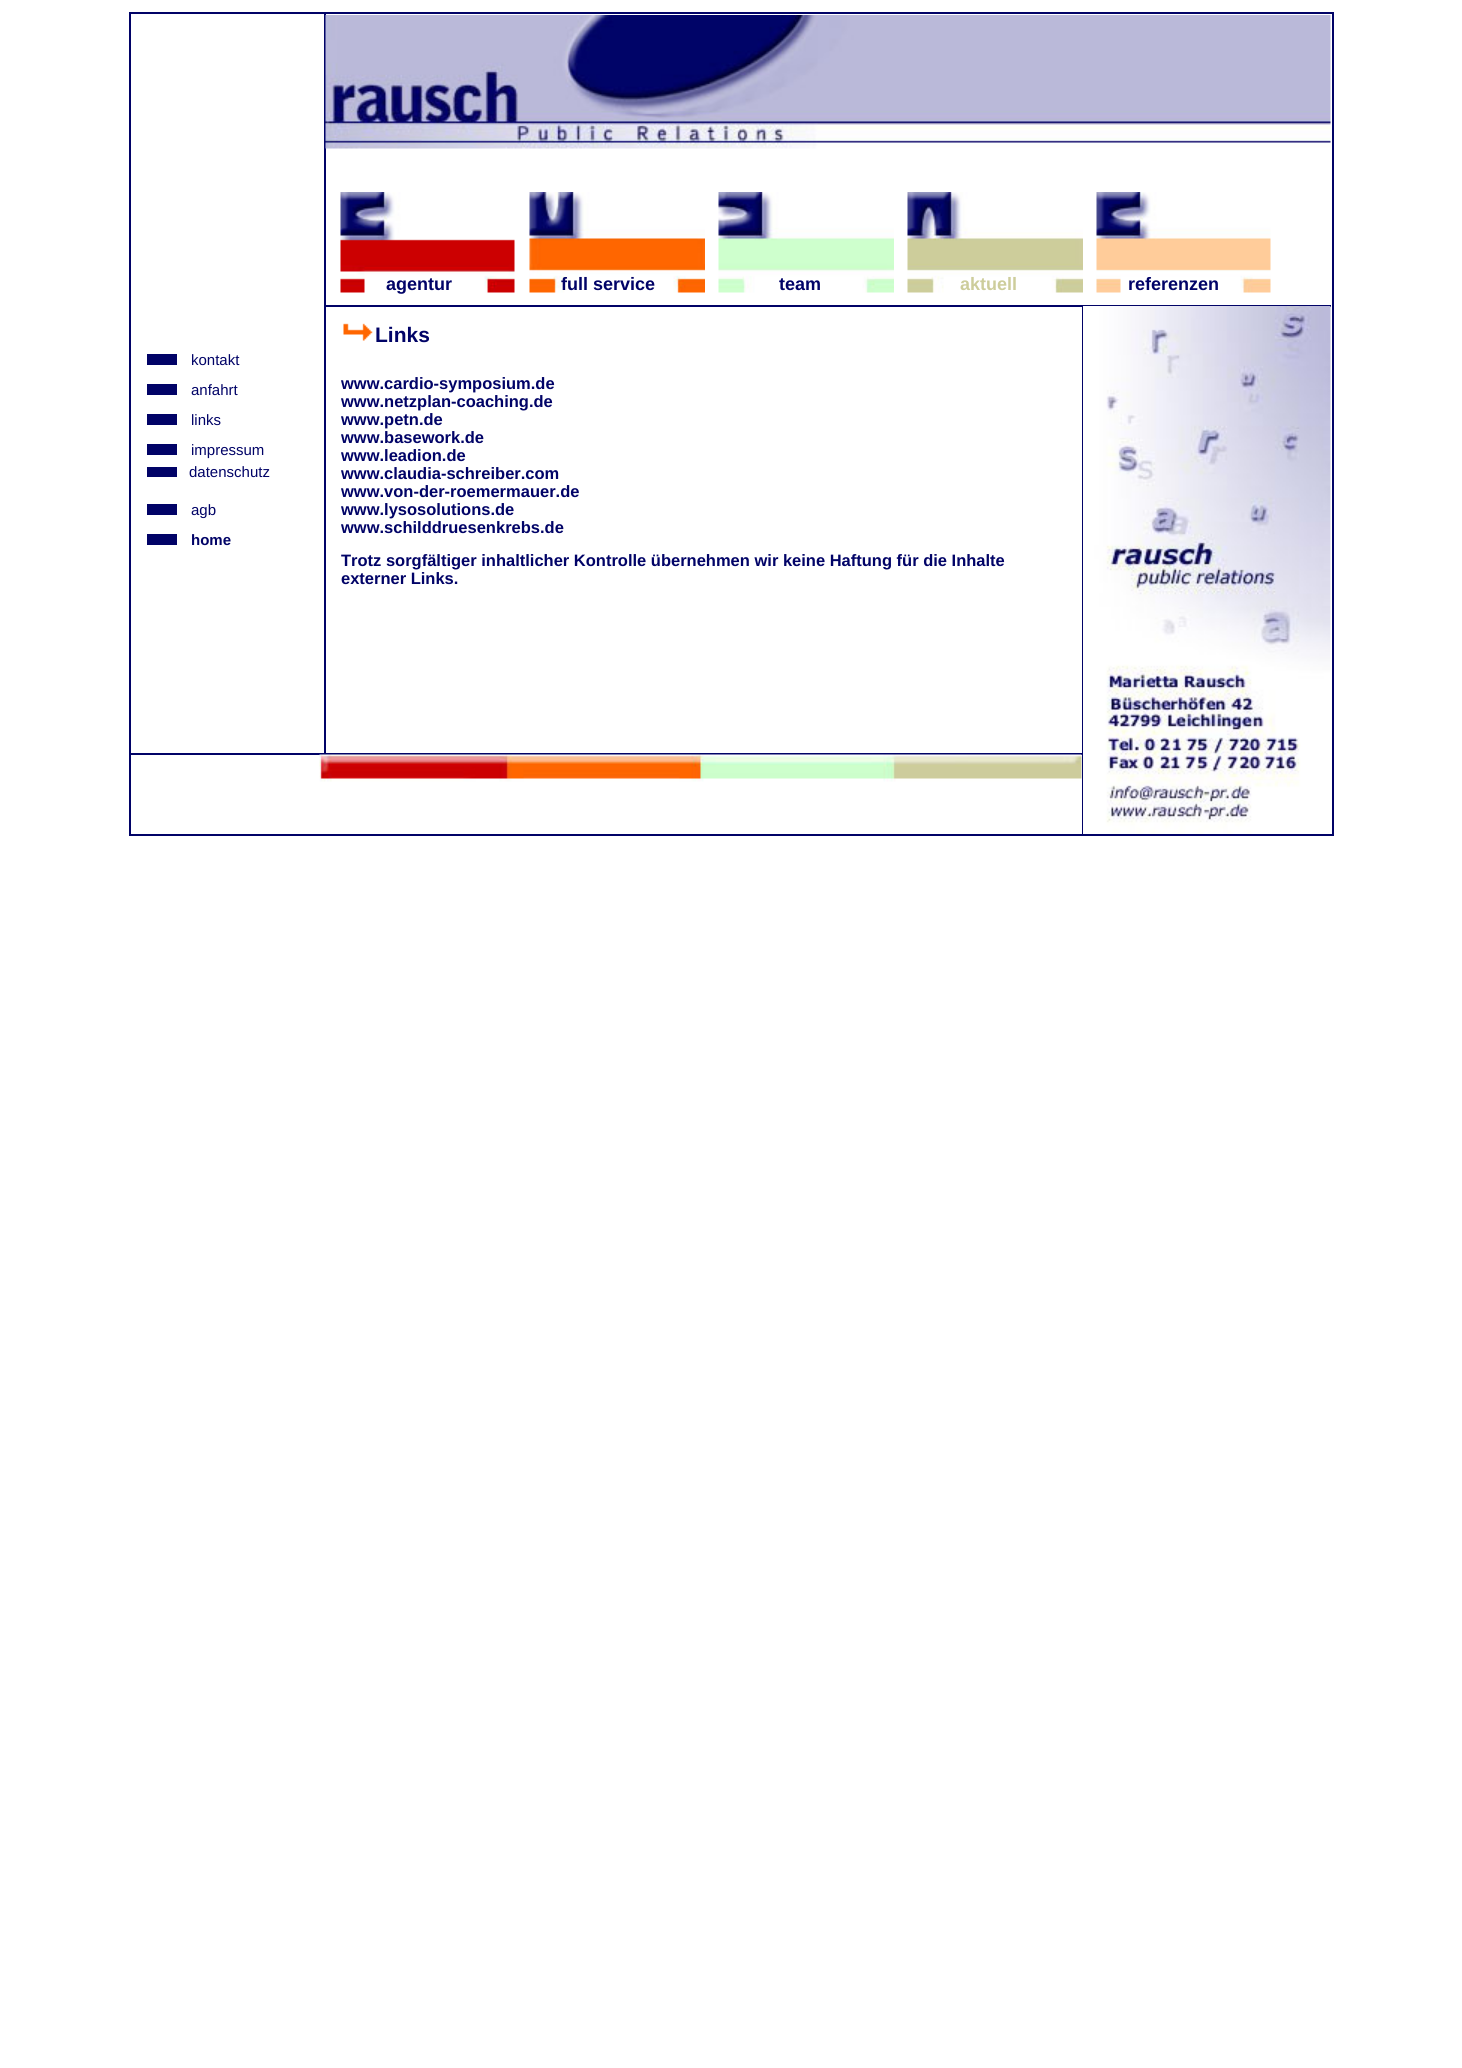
import math
import cairocffi as cairo

surface = cairo.ImageSurface(cairo.FORMAT_RGB24, 1462, 2068)
ctx = cairo.Context(surface)
options = cairo.FontOptions()
options.set_hint_metrics(cairo.HINT_METRICS_OFF)
options.set_hint_style(cairo.HINT_STYLE_NONE)
ctx.set_font_options(options)
ctx.set_miter_limit(4)


def rgb(r, g, b):
    ctx.set_source_rgb(r / 255, g / 255, b / 255)


def face(family, size, italic, bold):
    ctx.select_font_face(family, cairo.FONT_SLANT_ITALIC if italic else cairo.FONT_SLANT_NORMAL, cairo.FONT_WEIGHT_BOLD if bold else cairo.FONT_WEIGHT_NORMAL)
    ctx.set_font_size(size)


def label(x, y, s):
    ctx.move_to(x, y)
    ctx.show_text(s)


def rect(x, y, w, h):
    ctx.rectangle(x, y, w, h)
    ctx.fill()


def image(path, x, y, w, h):
    ctx.save()
    ctx.set_source_surface(cairo.ImageSurface.create_from_png(path), x, y)
    ctx.rectangle(x, y, w, h)
    ctx.fill()
    ctx.restore()


rgb(255, 255, 255)
ctx.paint()
rgb(1, 3, 103)
rect(129, 12, 1205, 2)
rect(129, 14, 2, 820)
rect(324, 14, 2, 739)
image('image0.png', 340, 192, 175, 101)
face('Liberation Sans', 18, 0, 1)
label(386, 290, 'agentur')
image('image1.png', 529, 192, 176, 101)
label(561, 290, 'full service')
image('image2.png', 718, 192, 176, 101)
label(779, 290, 'team')
image('image3.png', 907, 192, 176, 101)
rgb(205, 205, 155)
label(960, 290, 'aktuell')
image('image4.png', 1096, 192, 175, 101)
rgb(1, 3, 103)
label(1128, 290, 'referenzen')
rect(326, 305, 1005, 2)
image('image5.png', 325, 15, 1006, 134)
rect(147, 354, 30, 11)
face('Liberation Sans', 15, 0, 0)
label(191, 365, 'kontakt')
rect(147, 384, 30, 11)
label(191, 395, 'anfahrt')
rect(147, 414, 30, 11)
label(191, 425, 'links')
rect(147, 444, 30, 11)
label(191, 455, 'impressum')
rect(147, 467, 30, 10)
label(189, 477, 'datenschutz')
rect(147, 504, 30, 11)
label(191, 515, 'agb')
rect(147, 534, 30, 11)
face('Liberation Sans', 15, 0, 1)
label(191, 545, 'home')
image('image6.png', 343, 323, 30, 18)
face('Liberation Sans', 21, 0, 1)
label(375, 342, 'Links')
face('Liberation Sans', 16.5, 0, 1)
label(341, 389, 'www.cardio-symposium.de')
label(341, 407, 'www.netzplan-coaching.de')
label(341, 425, 'www.petn.de')
label(341, 443, 'www.basework.de')
label(341, 461, 'www.leadion.de')
label(341, 479, 'www.claudia-schreiber.com')
label(341, 497, 'www.von-der-roemermauer.de')
label(341, 515, 'www.lysosolutions.de')
label(341, 533, 'www.schilddruesenkrebs.de')
label(341, 566, 'Trotz sorgfältiger inhaltlicher Kontrolle übernehmen wir keine Haftung für die Inhalte')
label(341, 584, 'externer Links.')
rect(1082, 306, 1, 528)
image('image7.png', 1083, 306, 248, 528)
rect(131, 753, 951, 2)
image('image8.png', 319, 754, 763, 28)
rect(1332, 14, 2, 820)
rect(129, 834, 1205, 2)
surface.write_to_png('render.png')
